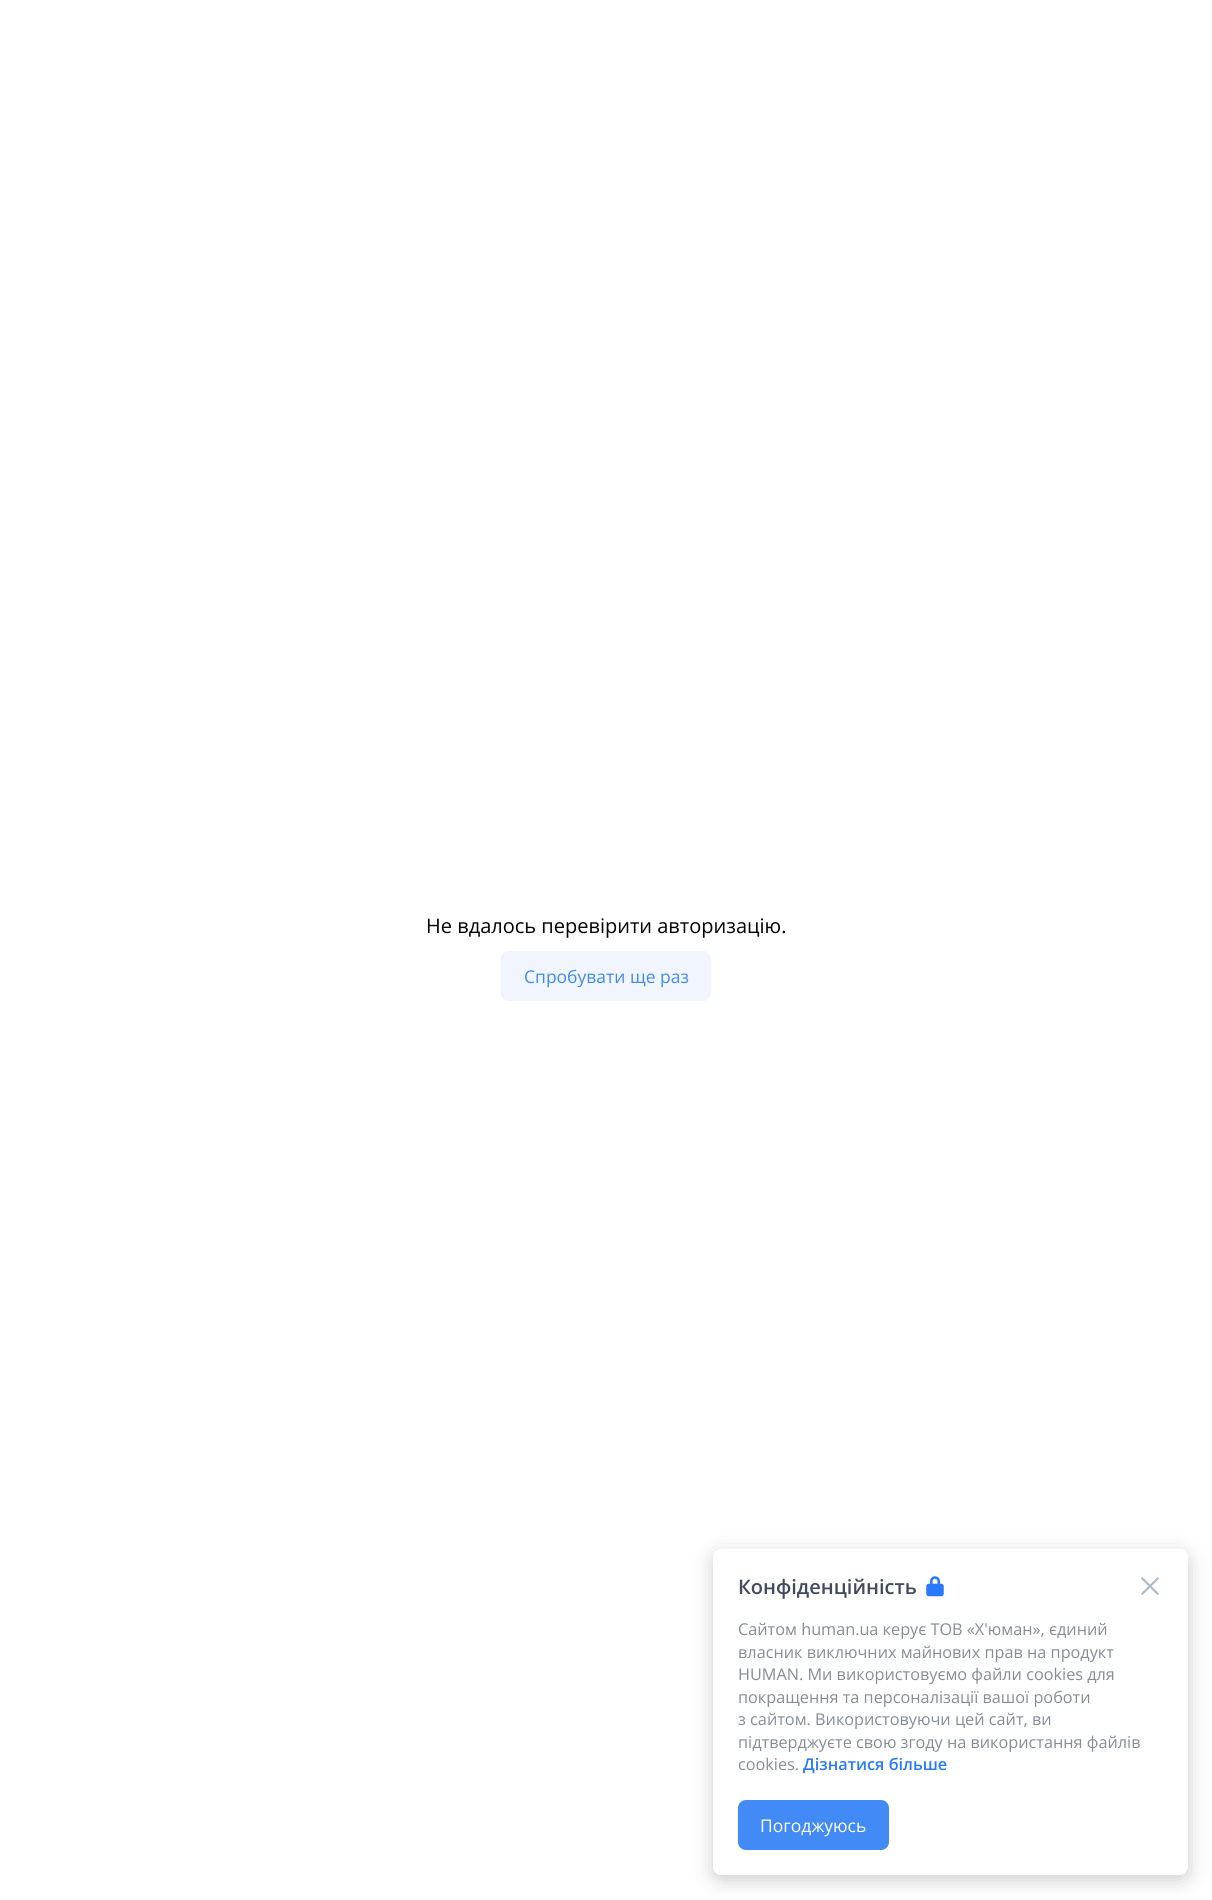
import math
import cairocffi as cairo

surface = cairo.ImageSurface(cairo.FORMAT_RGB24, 1212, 1900)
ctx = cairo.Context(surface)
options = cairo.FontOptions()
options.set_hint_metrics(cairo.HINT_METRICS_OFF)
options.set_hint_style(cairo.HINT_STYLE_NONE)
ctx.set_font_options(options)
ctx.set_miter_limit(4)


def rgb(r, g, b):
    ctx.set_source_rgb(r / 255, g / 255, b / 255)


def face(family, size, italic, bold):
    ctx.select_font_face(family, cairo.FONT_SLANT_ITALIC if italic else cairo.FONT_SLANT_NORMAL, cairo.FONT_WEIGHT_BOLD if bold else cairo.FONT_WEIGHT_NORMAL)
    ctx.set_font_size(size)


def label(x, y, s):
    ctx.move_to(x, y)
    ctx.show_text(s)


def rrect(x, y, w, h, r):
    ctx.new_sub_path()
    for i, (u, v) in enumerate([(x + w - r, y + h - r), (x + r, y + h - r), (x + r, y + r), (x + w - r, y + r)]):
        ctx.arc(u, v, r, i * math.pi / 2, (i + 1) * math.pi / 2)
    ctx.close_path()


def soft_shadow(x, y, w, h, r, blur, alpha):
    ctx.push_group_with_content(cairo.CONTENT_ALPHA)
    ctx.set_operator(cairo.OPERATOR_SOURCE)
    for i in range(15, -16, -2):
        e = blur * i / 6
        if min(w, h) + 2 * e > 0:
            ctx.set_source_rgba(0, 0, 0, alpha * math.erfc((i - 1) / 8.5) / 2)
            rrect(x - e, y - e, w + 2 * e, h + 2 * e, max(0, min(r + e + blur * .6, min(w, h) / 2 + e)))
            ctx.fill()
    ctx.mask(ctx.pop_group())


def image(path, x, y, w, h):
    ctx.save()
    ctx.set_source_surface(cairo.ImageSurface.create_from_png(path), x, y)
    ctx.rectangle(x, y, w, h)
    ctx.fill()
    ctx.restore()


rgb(255, 255, 255)
ctx.paint()
face('Open Sans', 20, 0, 0)
rgb(0, 0, 0)
label(426, 933, 'Не вдалось перевірити авторизацію.')
rgb(241, 245, 253)
rrect(501, 951, 210, 50, 8)
ctx.fill()
face('Open Sans', 17.5, 0, 0)
rgb(66, 138, 245)
label(524, 983, 'Спробувати ще раз')
rgb(0, 0, 0)
soft_shadow(713, 1554, 475, 326, 8, 10, 0.2)
rgb(255, 255, 255)
rrect(713, 1549, 475, 326, 8)
ctx.fill()
face('Open Sans SemiBold', 20, 0, 0)
rgb(65, 74, 95)
label(738, 1594, 'Конфіденційність')
image('image0.png', 926, 1576, 18, 21)
face('Open Sans', 16.25, 0, 0)
rgb(135, 140, 151)
label(738, 1635, 'Сайтом human.ua керує ТОВ «Х\'юман», єдиний')
label(738, 1658, 'власник виключних майнових прав на продукт')
label(738, 1680, 'HUMAN. Ми використовуємо файли cookies для')
label(738, 1703, 'покращення та персоналізації вашої роботи')
label(738, 1725, 'з сайтом. Використовуючи цей сайт, ви')
label(738, 1748, 'підтверджуєте свою згоду на використання файлів')
label(738, 1770, 'cookies.')
face('Open Sans SemiBold', 16.25, 0, 0)
rgb(41, 121, 255)
label(803, 1770, 'Дізнатися більше')
rgb(66, 138, 245)
rrect(738, 1800, 151, 50, 8)
ctx.fill()
face('Open Sans', 17.5, 0, 0)
rgb(255, 255, 255)
label(760, 1832, 'Погоджуюсь')
image('image1.png', 1141, 1577, 18, 18)
surface.write_to_png('render.png')
